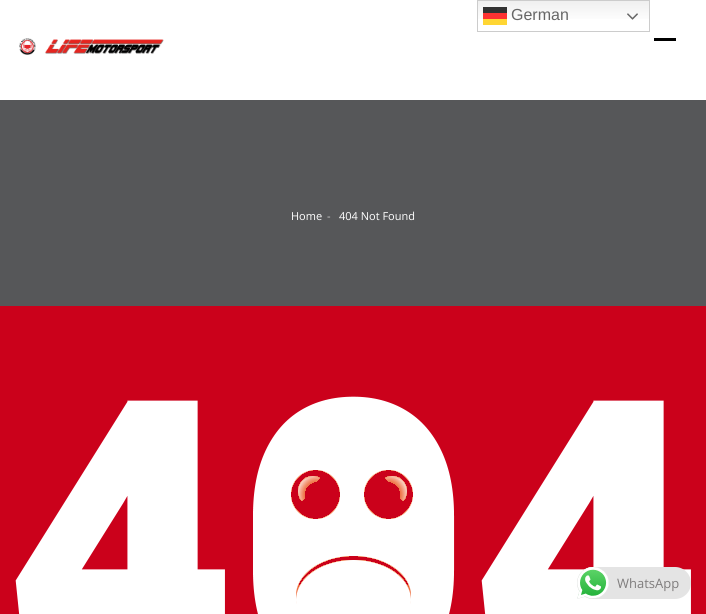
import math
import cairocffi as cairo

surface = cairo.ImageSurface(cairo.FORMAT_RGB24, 706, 614)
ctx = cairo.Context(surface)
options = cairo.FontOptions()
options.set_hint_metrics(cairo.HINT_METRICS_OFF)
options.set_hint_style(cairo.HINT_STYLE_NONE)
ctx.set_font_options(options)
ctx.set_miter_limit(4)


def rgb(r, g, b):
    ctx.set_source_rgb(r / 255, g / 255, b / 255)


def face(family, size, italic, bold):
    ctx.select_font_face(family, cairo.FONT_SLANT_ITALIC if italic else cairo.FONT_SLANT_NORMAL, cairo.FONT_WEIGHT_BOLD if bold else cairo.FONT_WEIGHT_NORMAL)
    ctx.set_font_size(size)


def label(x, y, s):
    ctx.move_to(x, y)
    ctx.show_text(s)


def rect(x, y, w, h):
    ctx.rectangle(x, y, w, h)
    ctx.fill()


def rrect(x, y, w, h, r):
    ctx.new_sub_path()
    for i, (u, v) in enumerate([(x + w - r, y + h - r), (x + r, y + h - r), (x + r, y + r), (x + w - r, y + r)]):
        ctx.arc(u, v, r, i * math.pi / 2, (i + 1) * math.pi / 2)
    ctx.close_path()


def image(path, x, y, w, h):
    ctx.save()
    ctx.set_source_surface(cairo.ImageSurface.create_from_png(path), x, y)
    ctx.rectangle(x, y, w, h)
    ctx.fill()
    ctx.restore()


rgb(255, 255, 255)
ctx.paint()
gradient = cairo.LinearGradient(564, 0, 564, 32)
gradient.add_color_stop_rgba(0, 0.937, 0.937, 0.937, 1)
gradient.add_color_stop_rgba(0.7, 1, 1, 1, 1)
ctx.set_source(gradient)
rect(478, 1, 171, 18)
gradient = cairo.LinearGradient(564, 0, 564, 32)
gradient.add_color_stop_rgba(0, 0.988, 0.188, 0.188, 1)
gradient.add_color_stop_rgba(0.7, 1, 0.2, 0.2, 1)
ctx.set_source(gradient)
rect(483, 13, 24, 6)
gradient = cairo.LinearGradient(564, 0, 564, 32)
gradient.add_color_stop_rgba(0, 0.188, 0.188, 0.188, 1)
gradient.add_color_stop_rgba(0.7, 0.2, 0.2, 0.2, 1)
ctx.set_source(gradient)
rect(483, 7, 24, 6)
ctx.rectangle(477.5, 0.5, 172, 31)
rgb(204, 204, 204)
ctx.set_line_width(1)
ctx.stroke()
face('Liberation Sans', 16, 0, 0)
rgb(102, 102, 102)
label(511, 20, 'German')
image('image0.png', 627, 13, 11, 7)
rgb(255, 214, 51)
rect(483, 19, 24, 6)
image('image1.png', 19, 38, 145, 17)
rgb(0, 0, 0)
rect(654, 38, 22, 3)
rgb(86, 87, 89)
rect(0, 100, 706, 206)
face('Open Sans', 11, 0, 0)
rgb(255, 255, 255)
label(291, 220, 'Home')
rgb(204, 204, 204)
label(327, 220, '-')
rgb(255, 255, 255)
label(339, 220, '404 Not Found')
rgb(203, 1, 27)
rect(0, 306, 706, 308)
image('image2.png', 15, 396, 676, 218)
rgb(228, 228, 228)
rrect(577, 567, 114, 32, 16)
ctx.fill()
image('image3.png', 577, 567, 32, 32)
face('Open Sans', 13, 0, 0)
rgb(127, 125, 125)
label(617, 588, 'WhatsApp')
surface.write_to_png('render.png')
